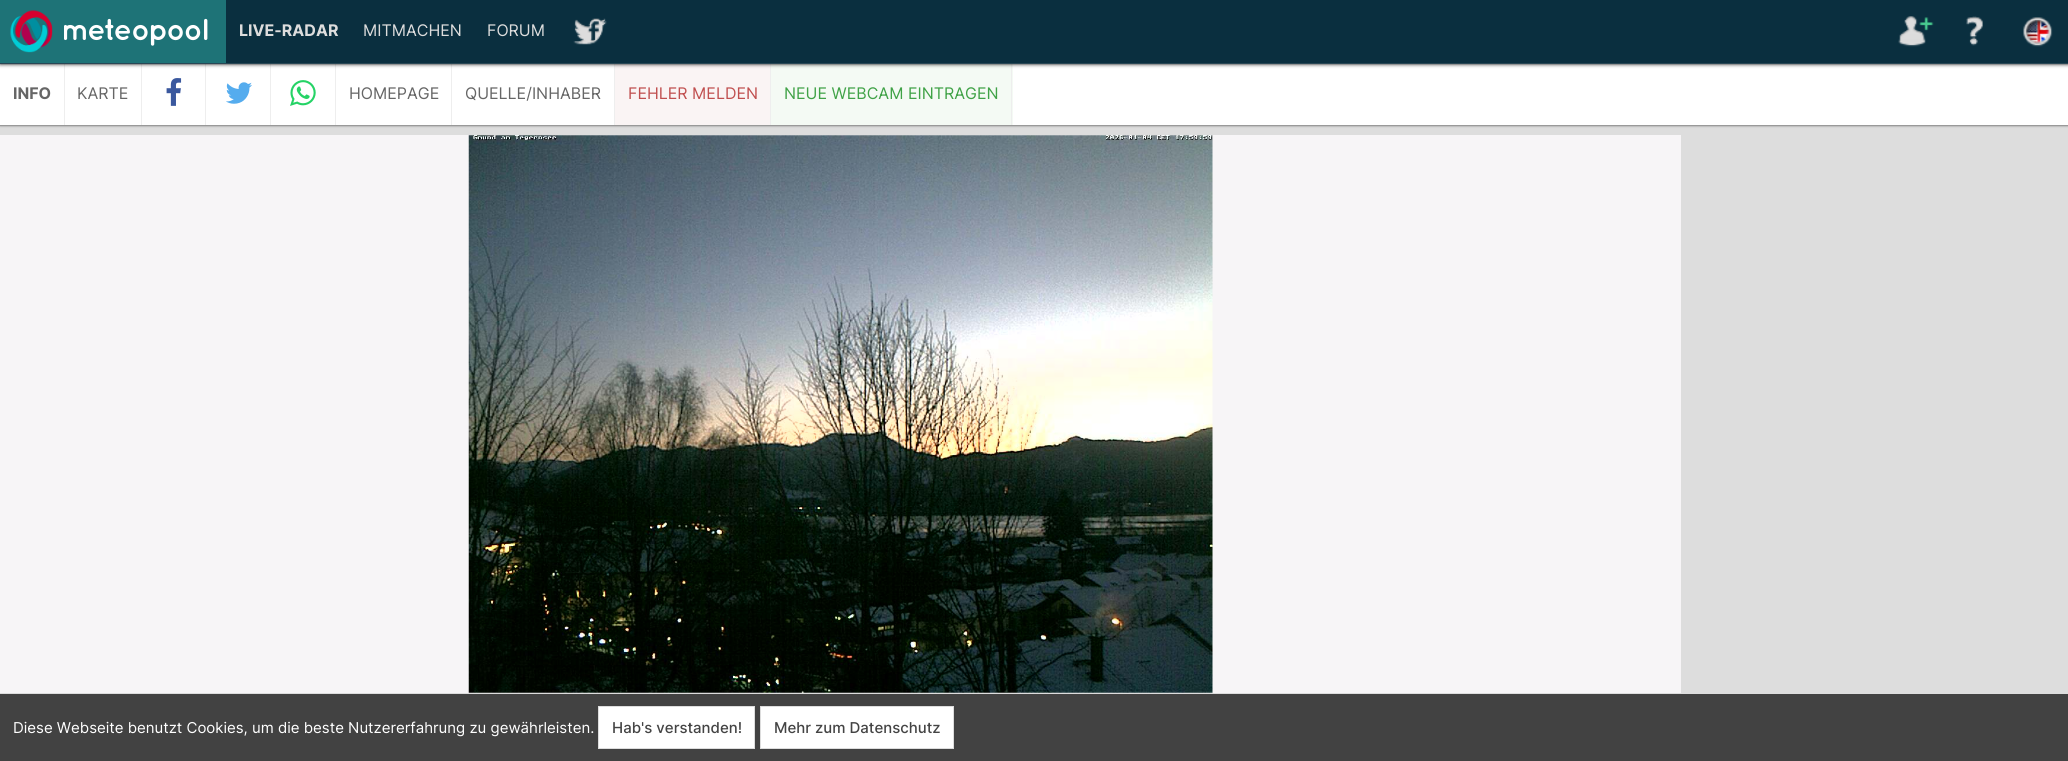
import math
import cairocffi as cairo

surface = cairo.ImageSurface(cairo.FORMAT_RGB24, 2068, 761)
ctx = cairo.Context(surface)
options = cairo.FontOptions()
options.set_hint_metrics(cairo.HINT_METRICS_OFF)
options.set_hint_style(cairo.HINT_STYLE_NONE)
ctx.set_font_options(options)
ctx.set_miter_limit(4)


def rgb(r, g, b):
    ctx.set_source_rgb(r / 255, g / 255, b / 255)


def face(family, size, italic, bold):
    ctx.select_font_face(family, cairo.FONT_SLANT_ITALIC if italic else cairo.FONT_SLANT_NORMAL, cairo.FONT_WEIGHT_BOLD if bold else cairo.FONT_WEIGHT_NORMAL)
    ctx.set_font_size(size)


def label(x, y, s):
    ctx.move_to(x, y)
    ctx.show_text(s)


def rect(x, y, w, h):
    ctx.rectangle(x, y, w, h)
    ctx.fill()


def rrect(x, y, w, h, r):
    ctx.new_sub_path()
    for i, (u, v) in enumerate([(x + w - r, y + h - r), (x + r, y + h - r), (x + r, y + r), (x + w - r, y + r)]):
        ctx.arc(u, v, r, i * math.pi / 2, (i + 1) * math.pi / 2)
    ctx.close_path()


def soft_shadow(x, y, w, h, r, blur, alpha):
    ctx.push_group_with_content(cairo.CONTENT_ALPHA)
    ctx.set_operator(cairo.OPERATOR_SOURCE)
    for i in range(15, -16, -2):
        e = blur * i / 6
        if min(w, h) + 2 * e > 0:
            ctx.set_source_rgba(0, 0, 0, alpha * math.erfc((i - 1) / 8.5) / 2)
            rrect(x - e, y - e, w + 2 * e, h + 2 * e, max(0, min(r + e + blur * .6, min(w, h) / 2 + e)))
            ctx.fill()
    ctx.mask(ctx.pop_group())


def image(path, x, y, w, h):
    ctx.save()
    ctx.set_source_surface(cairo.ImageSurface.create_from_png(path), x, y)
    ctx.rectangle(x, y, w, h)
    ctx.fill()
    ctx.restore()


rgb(221, 221, 221)
ctx.paint()
rgb(136, 136, 136)
soft_shadow(0, 63, 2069, 63, 0, 1, 1)
rgb(255, 255, 255)
rect(0, 64, 2068, 61)
rgb(238, 238, 238)
rect(64, 63, 1, 62)
rect(141, 63, 1, 62)
rect(205, 63, 1, 62)
rect(270, 63, 1, 62)
rect(335, 63, 1, 62)
rect(451, 63, 1, 62)
rect(614, 63, 1, 62)
rgb(250, 244, 244)
rect(615, 64, 155, 61)
rgb(238, 238, 238)
rect(770, 63, 1, 62)
rgb(244, 250, 244)
rect(771, 64, 242, 61)
rgb(238, 238, 238)
rect(1011, 63, 1, 62)
rgb(0, 0, 0)
soft_shadow(0, 0, 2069, 64, 0, 2, 1)
rgb(10, 47, 63)
rect(226, 0, 1842, 63)
rgb(40, 71, 85)
rect(0, 63, 2068, 1)
rgb(30, 115, 119)
rect(0, 0, 226, 63)
image('image0.png', 10, 10, 43, 43)
image('image1.png', 64, 18, 144, 28)
face('Inter', 16, 0, 1)
rgb(221, 221, 221)
label(239, 36, 'LIVE-RADAR')
face('Inter', 16, 0, 0)
label(363, 36, 'MITMACHEN')
label(487, 36, 'FORUM')
image('image2.png', 573, 18, 34, 27)
image('image3.png', 1898, 16, 36, 31)
image('image4.png', 1966, 16, 17, 30)
image('image5.png', 2023, 17, 30, 30)
rgb(153, 153, 153)
rect(0, 125, 2068, 1)
face('Inter', 16, 0, 1)
rgb(102, 102, 102)
label(13, 99, 'INFO')
face('Inter', 16, 0, 0)
label(77, 99, 'KARTE')
image('image6.png', 166, 78, 16, 28)
image('image7.png', 226, 82, 26, 22)
image('image8.png', 290, 80, 26, 26)
label(349, 99, 'HOMEPAGE')
label(465, 99, 'QUELLE/INHABER')
rgb(192, 79, 79)
label(628, 99, 'FEHLER MELDEN')
rgb(64, 162, 71)
label(784, 99, 'NEUE WEBCAM EINTRAGEN')
rgb(247, 245, 247)
rect(0, 135, 1681, 558)
image('image9.png', 468, 135, 745, 558)
rgb(66, 66, 66)
rect(0, 694, 2068, 67)
face('Inter', 15, 0, 0)
rgb(255, 255, 255)
label(13, 733, 'Diese Webseite benutzt Cookies, um die beste Nutzererfahrung zu gewährleisten.')
ctx.rectangle(598.5, 706.5, 156, 42)
ctx.fill_preserve()
rgb(221, 221, 221)
ctx.set_line_width(1)
ctx.stroke()
face('Inter Medium', 15, 0, 0)
rgb(68, 68, 68)
label(612, 733, 'Hab\'s verstanden!')
rgb(255, 255, 255)
ctx.rectangle(760.5, 706.5, 193, 42)
ctx.fill_preserve()
rgb(221, 221, 221)
ctx.stroke()
rgb(68, 68, 68)
label(774, 733, 'Mehr zum Datenschutz')
surface.write_to_png('render.png')
